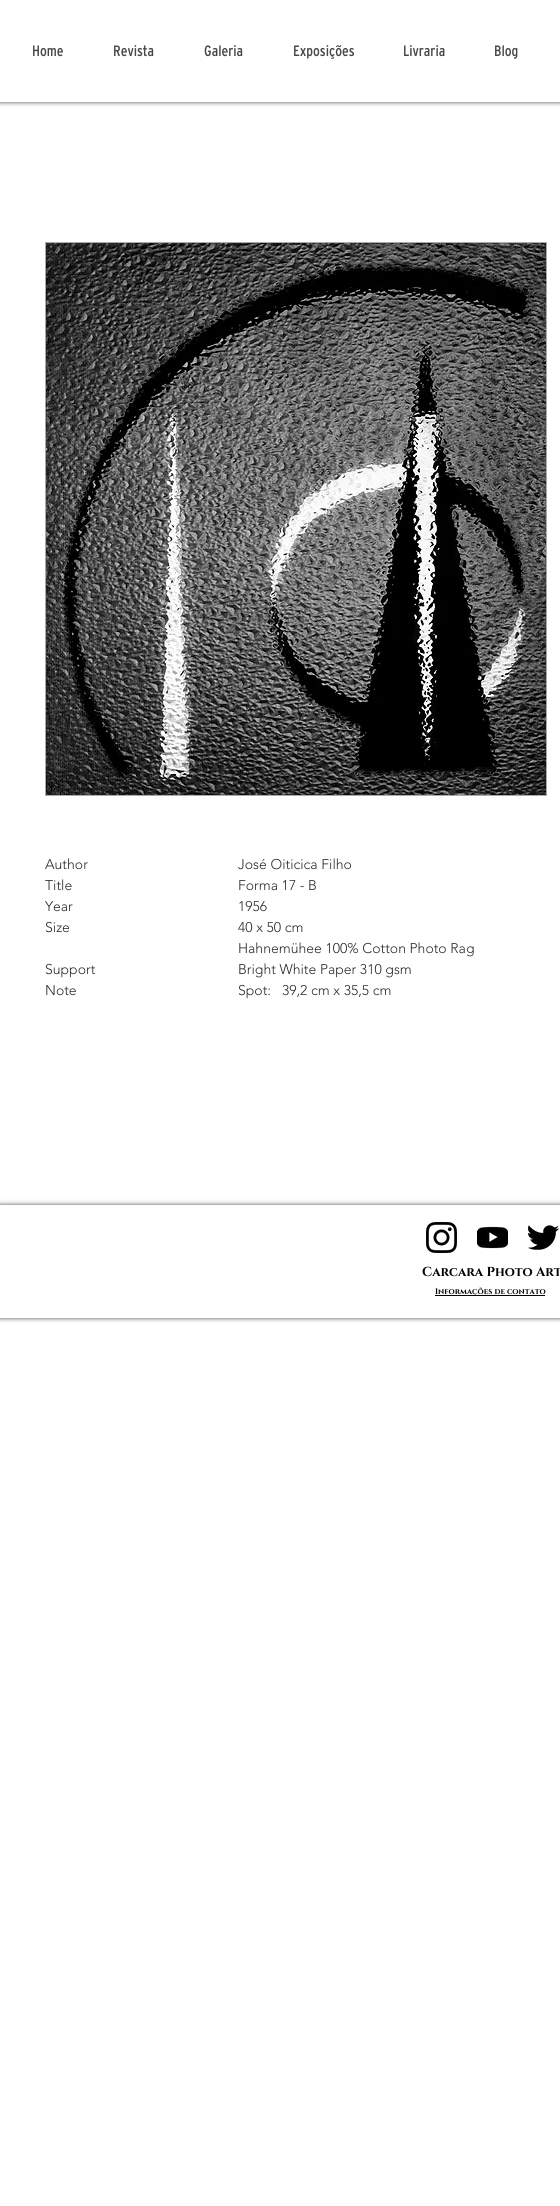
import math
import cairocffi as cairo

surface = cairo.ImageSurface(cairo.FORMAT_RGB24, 560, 2206)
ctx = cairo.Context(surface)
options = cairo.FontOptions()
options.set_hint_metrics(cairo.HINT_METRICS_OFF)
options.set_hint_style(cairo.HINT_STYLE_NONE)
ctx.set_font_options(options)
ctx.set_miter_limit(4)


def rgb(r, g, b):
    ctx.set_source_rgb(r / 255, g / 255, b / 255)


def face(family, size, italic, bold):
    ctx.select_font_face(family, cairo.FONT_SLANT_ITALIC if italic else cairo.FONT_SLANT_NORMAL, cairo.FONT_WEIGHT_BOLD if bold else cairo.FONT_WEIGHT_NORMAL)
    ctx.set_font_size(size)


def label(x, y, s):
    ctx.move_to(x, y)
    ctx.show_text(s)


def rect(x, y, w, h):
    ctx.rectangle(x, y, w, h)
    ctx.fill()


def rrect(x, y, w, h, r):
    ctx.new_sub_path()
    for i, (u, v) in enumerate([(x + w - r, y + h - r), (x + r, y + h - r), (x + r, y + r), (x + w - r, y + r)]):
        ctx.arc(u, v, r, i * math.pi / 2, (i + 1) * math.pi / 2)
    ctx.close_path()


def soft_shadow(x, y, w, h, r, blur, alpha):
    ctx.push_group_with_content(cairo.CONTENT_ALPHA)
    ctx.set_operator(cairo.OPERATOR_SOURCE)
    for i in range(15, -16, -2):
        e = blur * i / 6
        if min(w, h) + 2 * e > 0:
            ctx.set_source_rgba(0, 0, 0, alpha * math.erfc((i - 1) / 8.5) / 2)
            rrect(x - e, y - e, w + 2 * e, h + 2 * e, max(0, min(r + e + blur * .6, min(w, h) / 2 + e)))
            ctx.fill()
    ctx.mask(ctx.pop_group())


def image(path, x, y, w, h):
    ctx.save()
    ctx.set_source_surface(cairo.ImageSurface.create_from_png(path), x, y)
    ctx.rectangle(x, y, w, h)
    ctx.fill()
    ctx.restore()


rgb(255, 255, 255)
ctx.paint()
ctx.save()
ctx.rectangle(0, 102, 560, 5)
ctx.clip()
rgb(0, 0, 0)
soft_shadow(0, 0, 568, 102, 0, 2.5, 0.7)
ctx.restore()
face('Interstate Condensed', 15, 0, 0)
rgb(71, 71, 71)
label(32, 56, 'Home')
label(113, 56, 'Revista')
label(204, 56, 'Galeria')
label(293, 56, 'Exposições')
label(403, 56, 'Livraria')
label(494, 56, 'Blog')
ctx.rectangle(45.5, 242.5, 501, 553)
rgb(170, 170, 170)
ctx.set_line_width(1)
ctx.stroke()
image('image0.png', 46, 243, 500, 552)
face('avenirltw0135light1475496 Light', 14, 0, 0)
rgb(42, 42, 42)
label(45, 869, 'Author')
label(238, 869, 'José Oiticica Filho')
label(45, 890, 'Title')
label(238, 890, 'Forma 17 - B')
label(45, 911, 'Year')
label(238, 911, '1956')
label(45, 932, 'Size')
label(238, 932, '40 x 50 cm')
label(45, 974, 'Support')
label(238, 953, 'Hahnemühee 100% Cotton Photo Rag')
label(238, 974, 'Bright White Paper 310 gsm')
label(45, 995, 'Note')
label(238, 995, 'Spot:   39,2 cm x 35,5 cm')
ctx.save()
ctx.set_fill_rule(cairo.FILL_RULE_EVEN_ODD)
ctx.new_path()
ctx.move_to(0, 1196)
ctx.line_to(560, 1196)
ctx.line_to(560, 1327)
ctx.line_to(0, 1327)
ctx.close_path()
ctx.move_to(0, 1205)
ctx.line_to(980, 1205)
ctx.line_to(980, 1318)
ctx.line_to(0, 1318)
ctx.close_path()
ctx.clip()
rgb(0, 0, 0)
soft_shadow(0, 1205, 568, 113, 0, 2.5, 0.7)
ctx.restore()
image('image1.png', 426, 1222, 31, 31)
image('image2.png', 477, 1226, 31, 23)
image('image3.png', 528, 1225, 31, 25)
face('Cinzel', 13, 0, 1)
rgb(0, 0, 0)
label(422, 1276, 'Carcara Photo Art')
rect(435, 1295, 110, 1)
face('Cinzel', 8, 0, 1)
label(435, 1294, 'Informações de contato')
surface.write_to_png('render.png')
